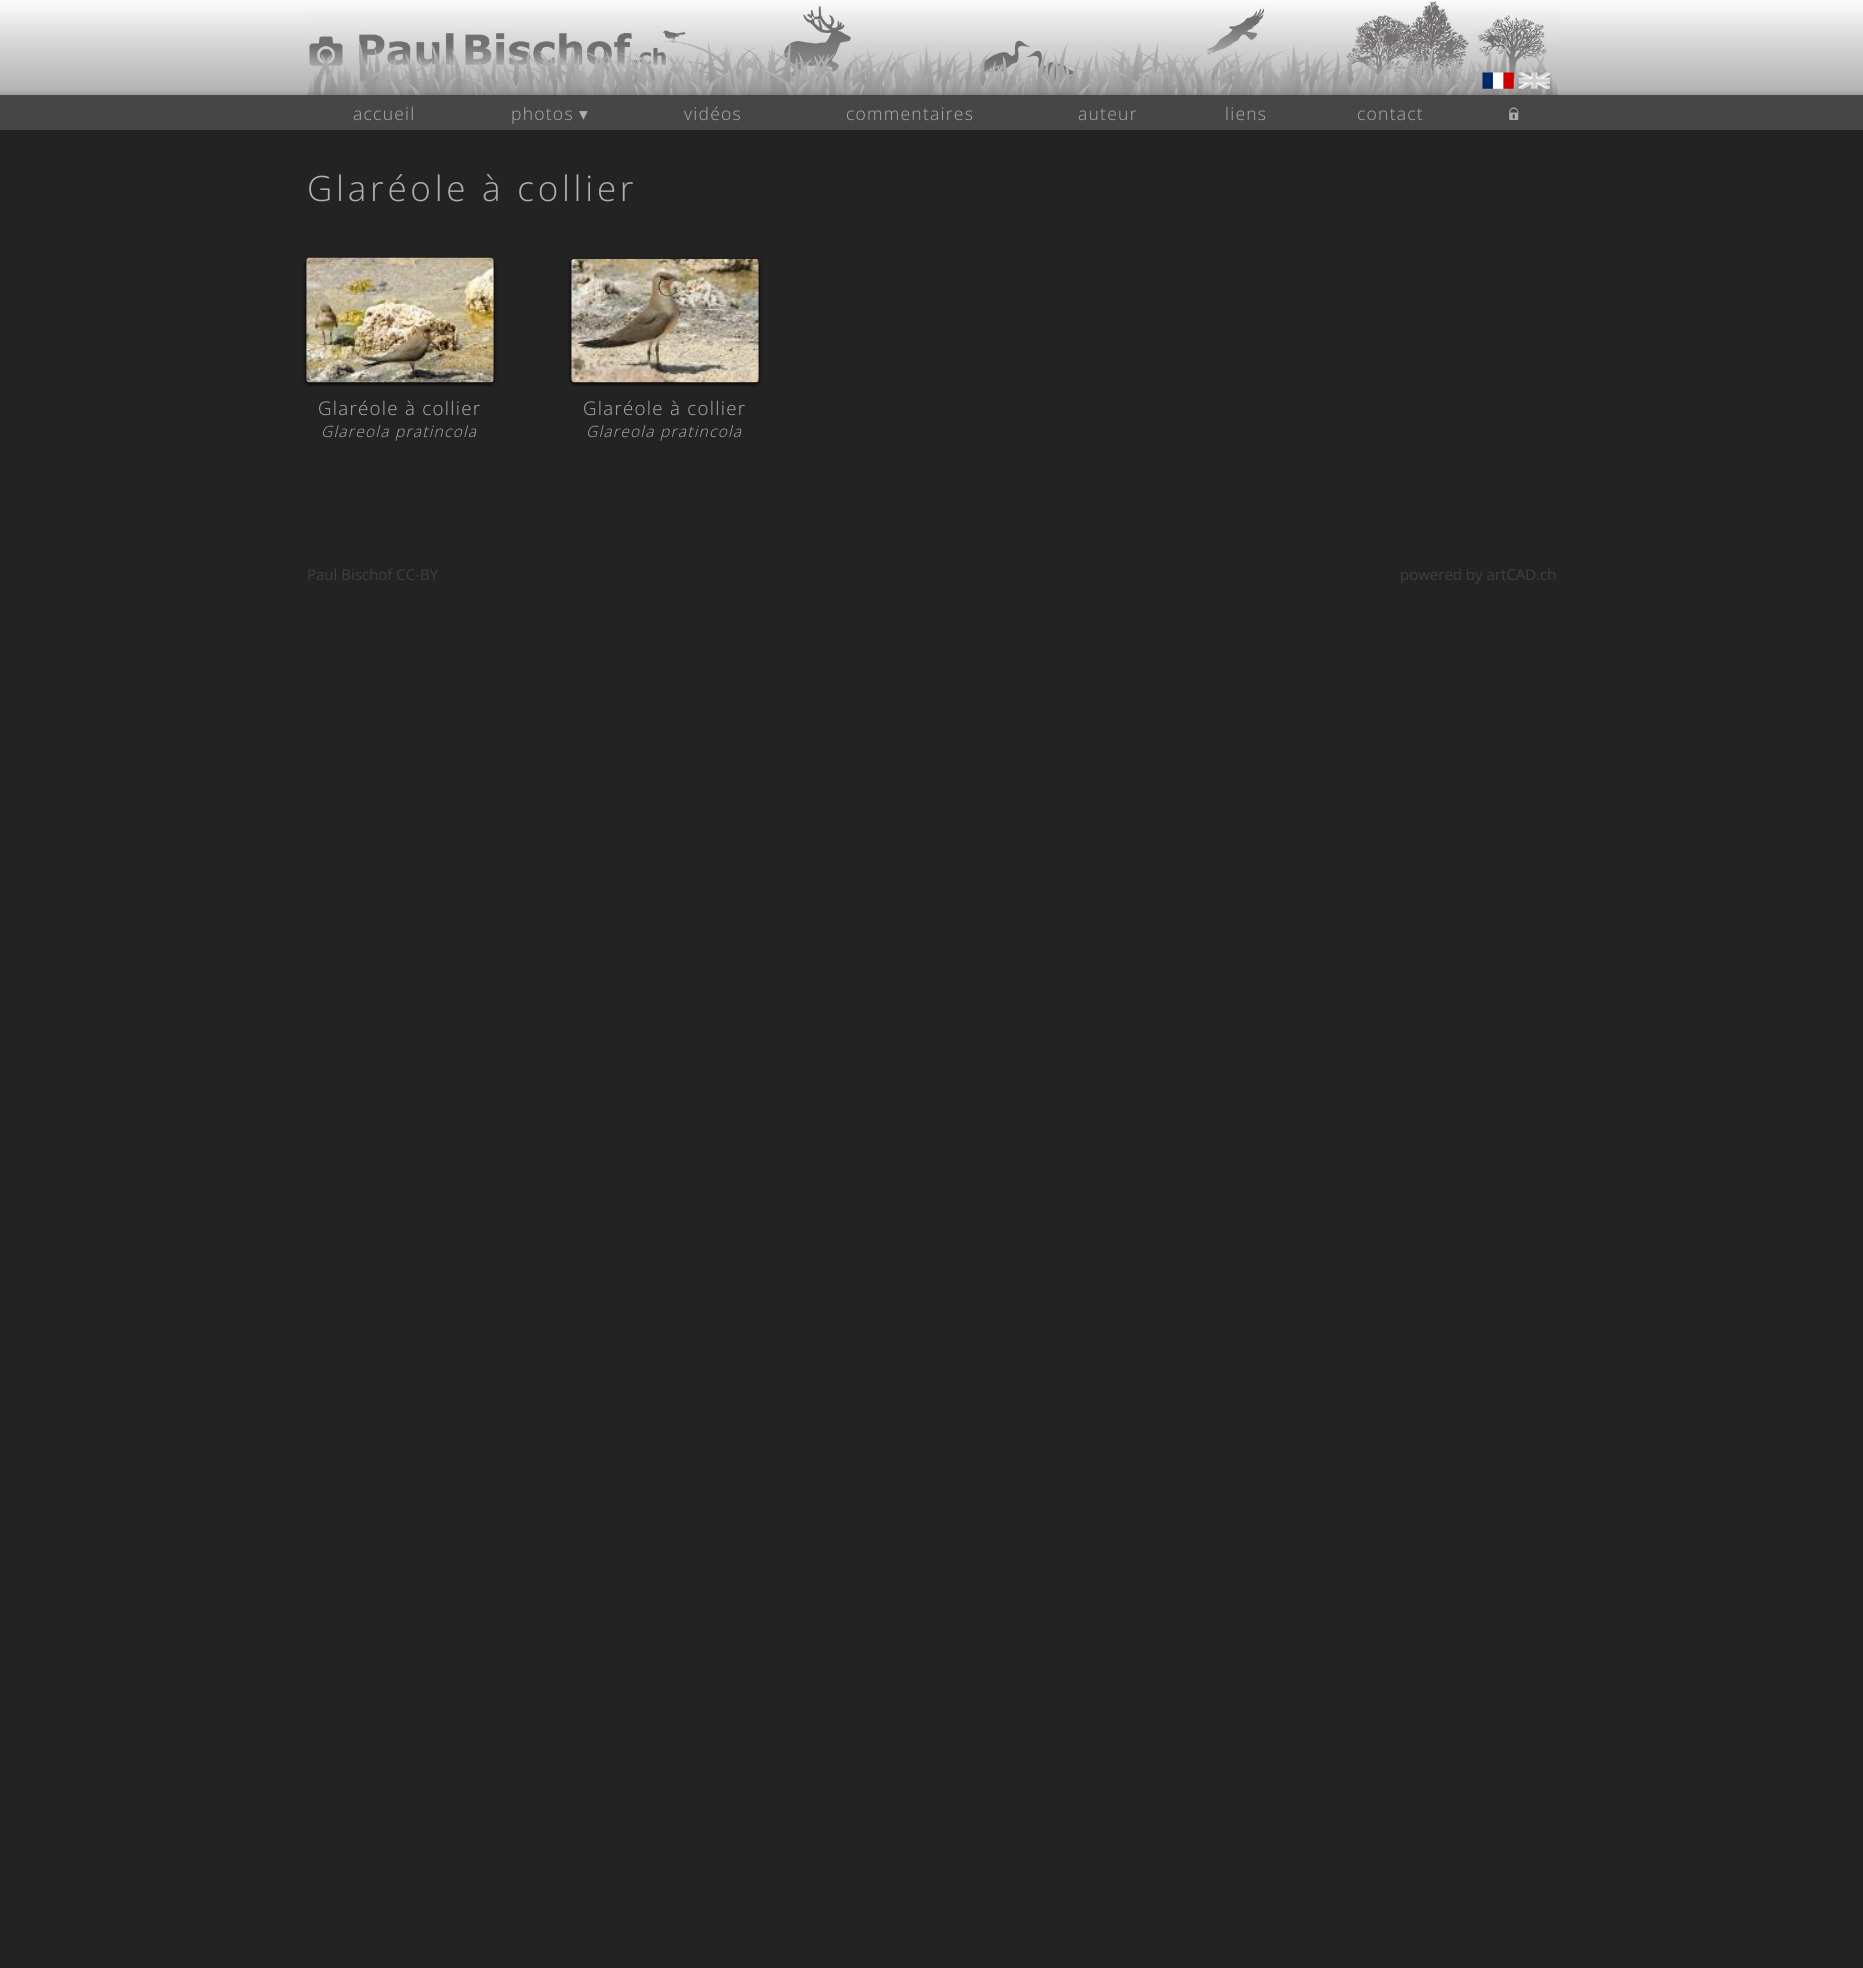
import math
import cairocffi as cairo

surface = cairo.ImageSurface(cairo.FORMAT_RGB24, 1863, 1968)
ctx = cairo.Context(surface)
options = cairo.FontOptions()
options.set_hint_metrics(cairo.HINT_METRICS_OFF)
options.set_hint_style(cairo.HINT_STYLE_NONE)
ctx.set_font_options(options)
ctx.set_miter_limit(4)


def rgb(r, g, b):
    ctx.set_source_rgb(r / 255, g / 255, b / 255)


def face(family, size, italic, bold):
    ctx.select_font_face(family, cairo.FONT_SLANT_ITALIC if italic else cairo.FONT_SLANT_NORMAL, cairo.FONT_WEIGHT_BOLD if bold else cairo.FONT_WEIGHT_NORMAL)
    ctx.set_font_size(size)


def label(x, y, s):
    ctx.move_to(x, y)
    ctx.show_text(s)


def tracked(x, y, s, letter, word):
    ctx.move_to(x, y)
    for ch in s:
        ctx.show_text(ch)
        ctx.rel_move_to(letter + word * (ch == ' '), 0)


def rect(x, y, w, h):
    ctx.rectangle(x, y, w, h)
    ctx.fill()


def rrect(x, y, w, h, r):
    ctx.new_sub_path()
    for i, (u, v) in enumerate([(x + w - r, y + h - r), (x + r, y + h - r), (x + r, y + r), (x + w - r, y + r)]):
        ctx.arc(u, v, r, i * math.pi / 2, (i + 1) * math.pi / 2)
    ctx.close_path()


def soft_shadow(x, y, w, h, r, blur, alpha):
    ctx.push_group_with_content(cairo.CONTENT_ALPHA)
    ctx.set_operator(cairo.OPERATOR_SOURCE)
    for i in range(15, -16, -2):
        e = blur * i / 6
        if min(w, h) + 2 * e > 0:
            ctx.set_source_rgba(0, 0, 0, alpha * math.erfc((i - 1) / 8.5) / 2)
            rrect(x - e, y - e, w + 2 * e, h + 2 * e, max(0, min(r + e + blur * .6, min(w, h) / 2 + e)))
            ctx.fill()
    ctx.mask(ctx.pop_group())


def image(path, x, y, w, h):
    ctx.save()
    ctx.set_source_surface(cairo.ImageSurface.create_from_png(path), x, y)
    ctx.rectangle(x, y, w, h)
    ctx.fill()
    ctx.restore()


rgb(35, 35, 35)
ctx.paint()
image('image0.png', 0, 0, 1863, 95)
image('image1.png', 308, 1, 1250, 94)
image('image2.png', 1482, 72, 32, 17)
image('image3.png', 1518, 72, 32, 17)
rgb(70, 70, 70)
rect(0, 95, 1863, 35)
face('Open Sans Light', 17.5, 0, 0)
rgb(175, 175, 175)
tracked(353, 120, 'accueil', 1.25, 0)
tracked(511, 120, 'photos', 1.25, 0)
face('DejaVu Sans', 17.5, 0, 0)
tracked(579, 120, '▾', 1.25, 0)
face('Open Sans Light', 17.5, 0, 0)
tracked(684, 120, 'vidéos', 1.25, 0)
tracked(846, 120, 'commentaires', 1.25, 0)
tracked(1078, 120, 'auteur', 1.25, 0)
tracked(1225, 120, 'liens', 1.25, 0)
tracked(1357, 120, 'contact', 1.25, 0)
image('image4.png', 1509, 107, 10, 13)
face('Open Sans Light', 35, 0, 0)
tracked(307, 201, 'Glaréole à collier', 3.75, 0)
rgb(0, 0, 0)
soft_shadow(306, 259, 188, 125, 4, 2, 1)
image('image5.png', 306, 257, 188, 126)
face('Open Sans Light', 18.75, 0, 0)
rgb(175, 175, 175)
tracked(318, 415, 'Glaréole à collier', 1.25, 0)
face('Open Sans Light', 15.6, 1, 0)
tracked(321, 437, 'Glareola pratincola', 1.25, 0)
rgb(0, 0, 0)
soft_shadow(571, 260, 188, 124, 4, 2, 1)
image('image6.png', 571, 258, 188, 125)
face('Open Sans Light', 18.75, 0, 0)
rgb(175, 175, 175)
tracked(583, 415, 'Glaréole à collier', 1.25, 0)
face('Open Sans Light', 15.6, 1, 0)
tracked(586, 437, 'Glareola pratincola', 1.25, 0)
face('Open Sans', 15, 0, 0)
rgb(63, 63, 63)
label(307, 580, 'Paul Bischof CC-BY')
label(1400, 580, 'powered by artCAD.ch')
surface.write_to_png('render.png')
